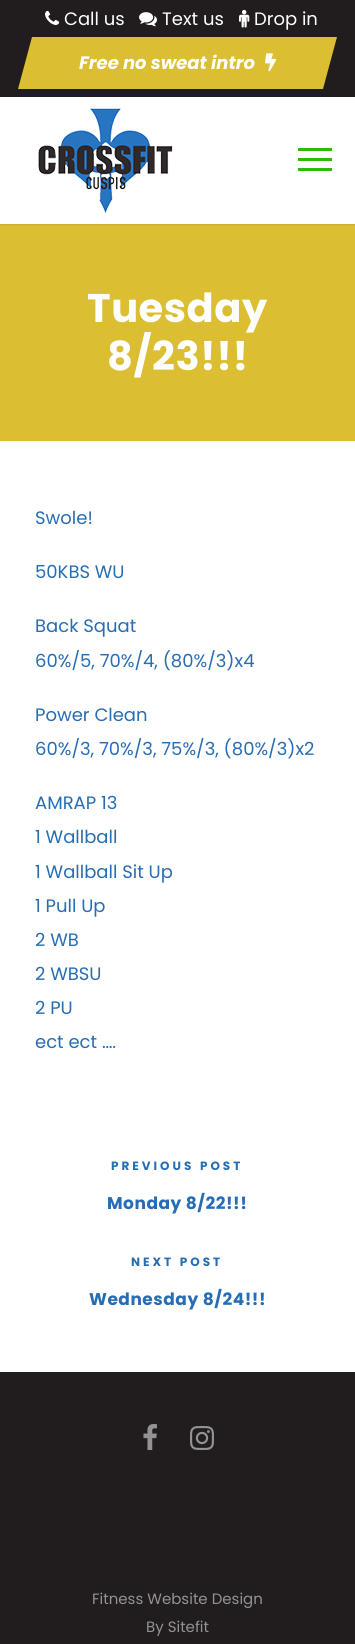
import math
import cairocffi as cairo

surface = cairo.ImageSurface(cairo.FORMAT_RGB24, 355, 1644)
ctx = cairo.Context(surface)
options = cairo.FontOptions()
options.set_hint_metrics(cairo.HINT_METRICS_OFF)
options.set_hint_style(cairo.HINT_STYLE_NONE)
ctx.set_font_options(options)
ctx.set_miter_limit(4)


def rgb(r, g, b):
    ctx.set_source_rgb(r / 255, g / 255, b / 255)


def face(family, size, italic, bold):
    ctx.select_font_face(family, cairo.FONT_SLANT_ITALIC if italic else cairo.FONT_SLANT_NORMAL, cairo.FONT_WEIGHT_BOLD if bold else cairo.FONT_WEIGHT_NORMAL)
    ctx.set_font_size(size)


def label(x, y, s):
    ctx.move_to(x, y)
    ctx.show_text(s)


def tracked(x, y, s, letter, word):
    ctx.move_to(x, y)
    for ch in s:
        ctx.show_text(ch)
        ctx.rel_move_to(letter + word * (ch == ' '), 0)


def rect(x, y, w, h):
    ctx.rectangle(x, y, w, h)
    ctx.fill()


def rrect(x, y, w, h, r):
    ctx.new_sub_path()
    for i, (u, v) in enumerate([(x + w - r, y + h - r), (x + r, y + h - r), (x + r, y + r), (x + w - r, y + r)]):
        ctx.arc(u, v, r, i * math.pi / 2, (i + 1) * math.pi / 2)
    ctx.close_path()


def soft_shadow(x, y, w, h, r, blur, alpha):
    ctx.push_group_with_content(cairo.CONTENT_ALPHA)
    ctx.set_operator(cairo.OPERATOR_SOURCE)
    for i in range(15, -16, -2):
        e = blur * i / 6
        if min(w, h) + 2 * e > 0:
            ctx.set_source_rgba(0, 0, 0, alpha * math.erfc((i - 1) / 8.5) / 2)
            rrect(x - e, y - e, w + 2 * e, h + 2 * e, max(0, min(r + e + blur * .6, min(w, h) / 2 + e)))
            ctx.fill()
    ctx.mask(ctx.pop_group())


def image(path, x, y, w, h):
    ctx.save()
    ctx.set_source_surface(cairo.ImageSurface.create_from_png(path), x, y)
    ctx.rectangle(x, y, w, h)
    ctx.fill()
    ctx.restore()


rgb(255, 255, 255)
ctx.paint()
rgb(219, 190, 50)
rect(0, 224, 355, 217)
ctx.save()
ctx.rectangle(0, 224, 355, 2)
ctx.clip()
rgb(0, 0, 0)
soft_shadow(0, 1, 355, 224, 0, 1, 0.1)
ctx.restore()
image('image0.png', 38, 108, 135, 105)
rgb(47, 185, 15)
rect(298, 148, 34, 3)
rect(298, 158, 34, 3)
rect(298, 168, 34, 3)
rgb(33, 28, 30)
rect(0, 0, 355, 97)
image('image1.png', 45, 10, 15, 15)
face('Poppins', 18, 0, 0)
rgb(255, 255, 255)
label(64, 25, 'Call us')
image('image2.png', 139, 12, 18, 15)
label(162, 25, 'Text us')
image('image3.png', 239, 9, 11, 19)
label(254, 25, 'Drop in')
gradient = cairo.LinearGradient(-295, 63, 330, 63)
gradient.add_color_stop_rgba(0, 0.145, 0.784, 0, 1)
gradient.add_color_stop_rgba(0.5, 0.149, 0.427, 0.706, 1)
gradient.add_color_stop_rgba(0.5, 0.859, 0.745, 0.196, 1)
gradient.add_color_stop_rgba(1, 0.859, 0.745, 0.196, 1)
ctx.set_source(gradient)
ctx.new_path()
ctx.move_to(32, 37)
ctx.line_to(337, 37)
ctx.line_to(323, 89)
ctx.line_to(18, 89)
ctx.close_path()
ctx.fill()
face('Poppins', 18, 1, 1)
rgb(255, 255, 255)
label(79, 69, 'Free no sweat intro')
image('image4.png', 265, 53, 12, 19)
face('Poppins', 40, 0, 1)
tracked(87, 322, 'Tuesday', 0.5, 0)
tracked(107, 370, '8/23!!!', 0.5, 0)
face('Poppins', 18, 0, 0)
rgb(38, 109, 180)
label(35, 524, 'Swole!')
label(35, 578, '50KBS WU')
label(35, 632, 'Back Squat')
label(35, 667, '60%/5, 70%/4, (80%/3)x4')
label(35, 721, 'Power Clean')
label(35, 755, '60%/3, 70%/3, 75%/3, (80%/3)x2')
label(35, 809, 'AMRAP 13')
label(35, 843, '1 Wallball')
label(35, 878, '1 Wallball Sit Up')
label(35, 912, '1 Pull Up')
label(35, 946, '2 WB')
label(35, 980, '2 WBSU')
label(35, 1014, '2 PU')
label(35, 1048, 'ect ect ….')
face('Poppins', 12, 0, 1)
tracked(111, 1170, 'PREVIOUS POST', 3, 0)
face('Poppins', 17, 0, 1)
tracked(107, 1209, 'Monday 8/22!!!', 0.5, 0)
face('Poppins', 12, 0, 1)
tracked(131, 1266, 'NEXT POST', 3, 0)
face('Poppins', 17, 0, 1)
tracked(89, 1305, 'Wednesday 8/24!!!', 0.5, 0)
rgb(33, 28, 30)
rect(0, 1372, 355, 272)
image('image5.png', 143, 1424, 14, 26)
image('image6.png', 190, 1426, 24, 24)
face('Poppins', 15, 0, 0)
rgb(147, 147, 147)
label(92, 1604, 'Fitness Website Design')
label(146, 1632, 'By Sitefit')
surface.write_to_png('render.png')
